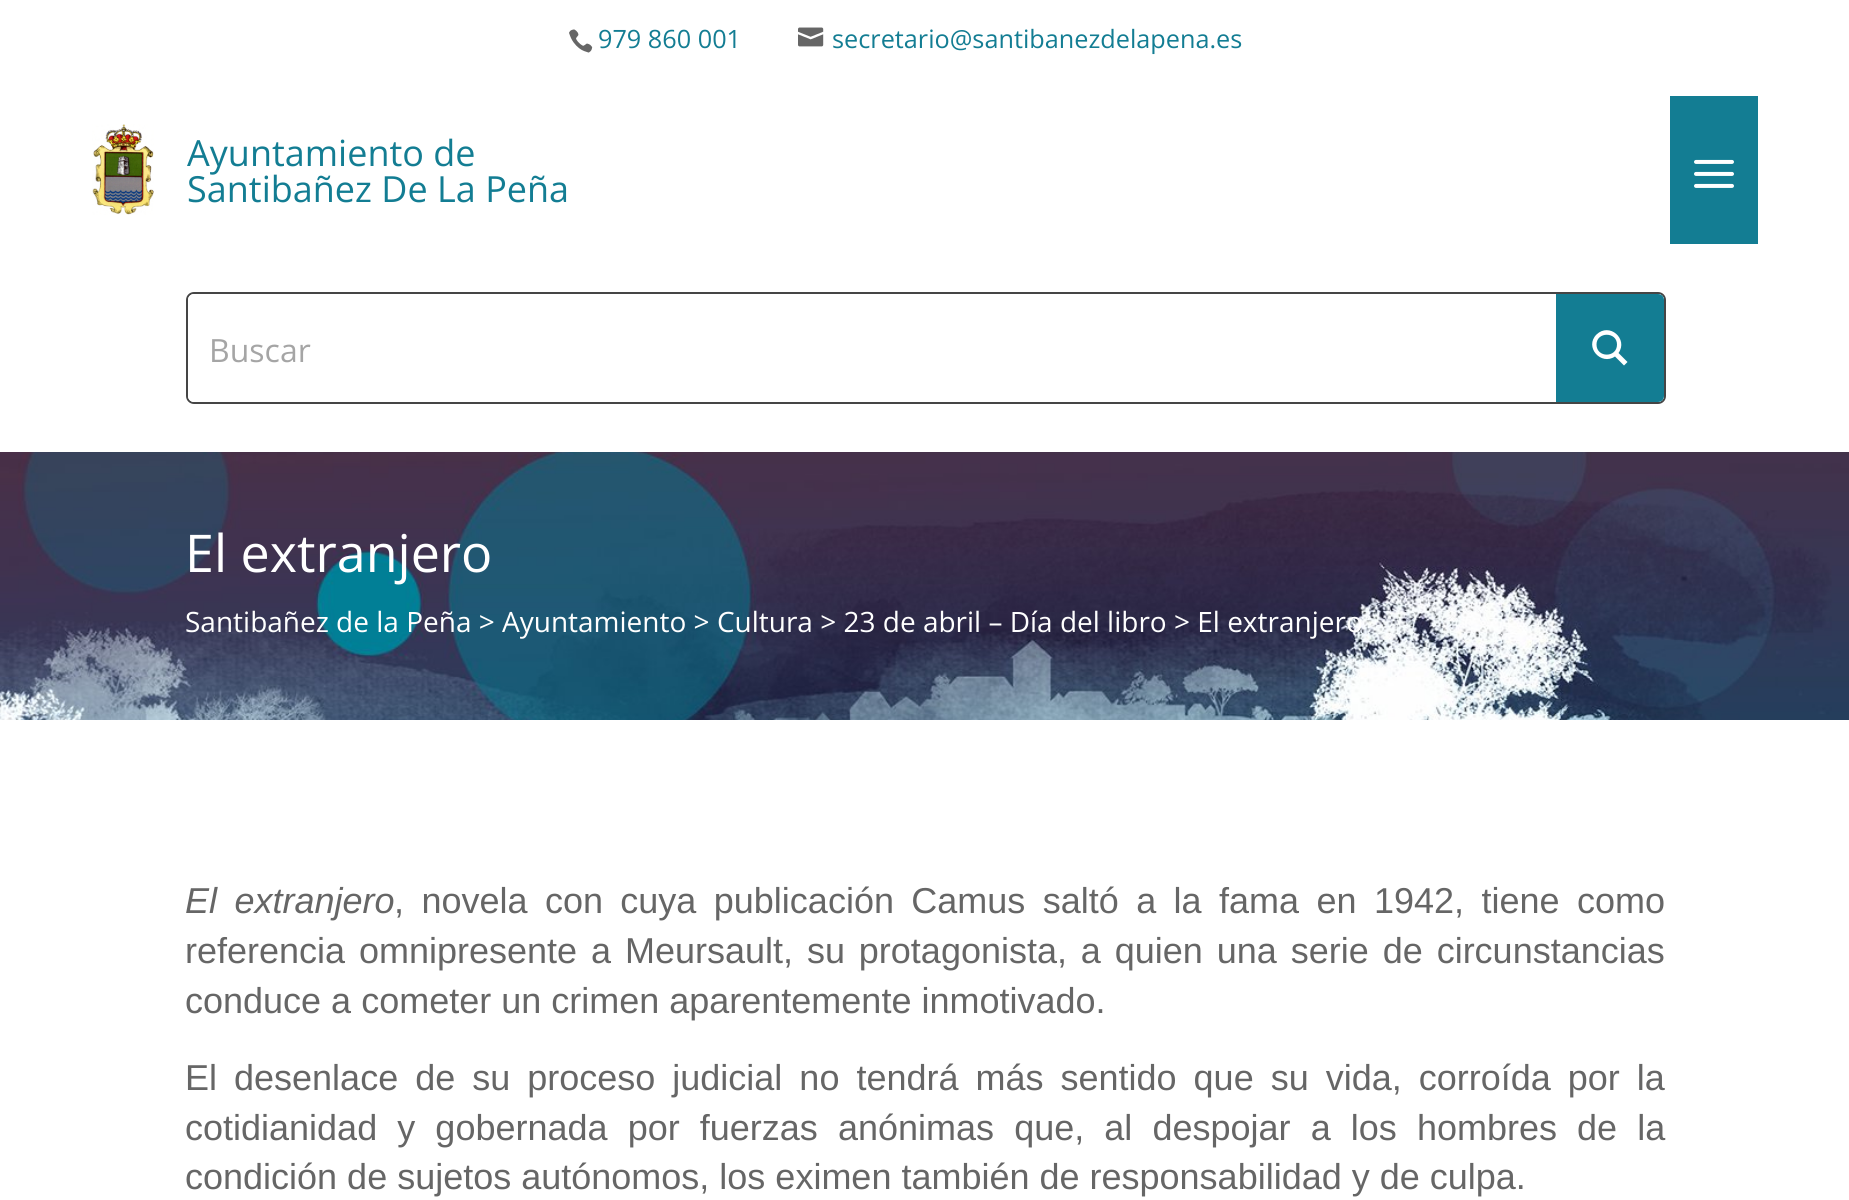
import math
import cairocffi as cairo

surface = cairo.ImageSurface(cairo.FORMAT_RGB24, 1849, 1200)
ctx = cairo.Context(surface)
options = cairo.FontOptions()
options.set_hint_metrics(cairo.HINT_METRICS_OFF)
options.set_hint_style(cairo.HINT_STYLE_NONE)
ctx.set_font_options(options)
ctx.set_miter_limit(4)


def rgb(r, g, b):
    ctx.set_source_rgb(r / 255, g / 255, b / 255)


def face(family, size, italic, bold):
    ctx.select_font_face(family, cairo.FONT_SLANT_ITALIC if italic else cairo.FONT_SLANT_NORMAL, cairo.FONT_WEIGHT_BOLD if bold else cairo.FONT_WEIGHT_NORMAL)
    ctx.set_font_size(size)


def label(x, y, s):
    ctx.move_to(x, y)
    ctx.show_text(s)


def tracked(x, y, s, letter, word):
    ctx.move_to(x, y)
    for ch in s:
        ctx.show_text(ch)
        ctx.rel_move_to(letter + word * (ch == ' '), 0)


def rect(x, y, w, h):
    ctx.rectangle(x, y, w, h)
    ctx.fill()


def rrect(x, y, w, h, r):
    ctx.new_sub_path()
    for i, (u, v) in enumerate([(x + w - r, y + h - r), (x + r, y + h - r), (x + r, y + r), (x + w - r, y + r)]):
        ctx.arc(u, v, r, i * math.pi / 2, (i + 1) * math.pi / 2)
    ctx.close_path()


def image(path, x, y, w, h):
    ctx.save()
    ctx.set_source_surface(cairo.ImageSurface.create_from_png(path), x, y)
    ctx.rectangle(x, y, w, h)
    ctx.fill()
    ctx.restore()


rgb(255, 255, 255)
ctx.paint()
image('image0.png', 569, 29, 24, 24)
face('Open Sans', 25.25, 0, 0)
rgb(19, 125, 147)
label(598, 48, '979 860 001')
image('image1.png', 798, 27, 26, 20)
label(832, 48, 'secretario@santibanezdelapena.es')
image('image2.png', 92, 124, 62, 91)
face('Open Sans', 36, 0, 0)
label(187, 166, 'Ayuntamiento de')
label(187, 202, 'Santibañez De La Peña')
rect(1670, 96, 88, 148)
image('image3.png', 1694, 159, 40, 29)
ctx.save()
rrect(186, 292, 1480, 112, 8)
ctx.clip()
gradient = cairo.RadialGradient(0, 0, 0, 0, 0, 1)
gradient.set_matrix(cairo.Matrix(1 / 1044, 0, 0, 1 / 76, -1 * 926 / 1044, -1 * 348 / 76))
gradient.add_color_stop_rgba(0, 1, 0.988, 0.988, 1)
gradient.add_color_stop_rgba(1, 1, 1, 1, 1)
ctx.set_source(gradient)
rect(188, 294, 1476, 108)
ctx.restore()
rrect(187, 293, 1478, 110, 7)
ctx.set_source_rgba(0, 0, 0, 0.73)
ctx.stroke()
rgb(255, 255, 255)
rrect(188, 294, 1476, 108, 6)
ctx.fill()
face('Open Sans', 32, 0, 0)
rgb(165, 165, 165)
label(209, 362, 'Buscar')
rgb(19, 125, 147)
ctx.new_path()
ctx.move_to(1556, 294)
ctx.line_to(1658, 294)
ctx.curve_to(1661.5, 294, 1664, 296.5, 1664, 300)
ctx.line_to(1664, 396)
ctx.curve_to(1664, 399.5, 1661.5, 402, 1658, 402)
ctx.line_to(1556, 402)
ctx.close_path()
ctx.fill()
rgb(255, 255, 255)
ctx.new_path()
ctx.move_to(1627.5, 362)
ctx.line_to(1618.5, 353)
ctx.curve_to(1628.5, 339, 1609.5, 322, 1596.5, 334.5)
ctx.curve_to(1584, 347, 1601, 366, 1615, 356.5)
ctx.line_to(1624, 365.5)
ctx.close_path()
ctx.move_to(1596.5, 344.5)
ctx.curve_to(1596.5, 331.5, 1617, 331.5, 1617, 344.5)
ctx.curve_to(1617, 358, 1596.5, 358, 1596.5, 344.5)
ctx.close_path()
ctx.fill()
image('image4.png', 0, 452, 1849, 268)
face('Open Sans', 52, 0, 0)
label(185, 572, 'El extranjero')
face('Open Sans', 28, 0, 0)
label(185, 632, 'Santibañez de la Peña > Ayuntamiento > Cultura > 23 de abril – Día del libro > El extranjero')
face('Liberation Sans', 36, 1, 0)
rgb(102, 102, 102)
tracked(185, 913, 'El extranjero', 0, 7.4)
face('Liberation Sans', 36, 0, 0)
tracked(394, 913, ', novela con cuya publicación Camus saltó a la fama en 1942, tiene como', 0, 7.4)
tracked(185, 963, 'referencia omnipresente a Meursault, su protagonista, a quien una serie de circunstancias', 0, 3.9)
label(185, 1013, 'conduce a cometer un crimen aparentemente inmotivado.')
tracked(185, 1090, 'El desenlace de su proceso judicial no tendrá más sentido que su vida, corroída por la', 0, 7)
tracked(185, 1140, 'cotidianidad y gobernada por fuerzas anónimas que, al despojar a los hombres de la', 0, 10.1)
label(185, 1189, 'condición de sujetos autónomos, los eximen también de responsabilidad y de culpa.')
surface.write_to_png('render.png')
